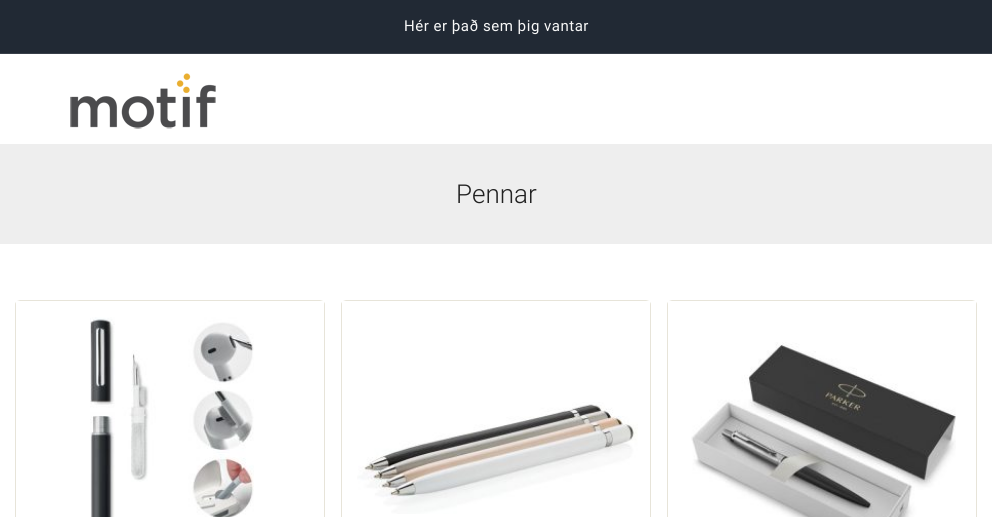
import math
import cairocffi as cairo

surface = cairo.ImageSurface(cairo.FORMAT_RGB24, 992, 517)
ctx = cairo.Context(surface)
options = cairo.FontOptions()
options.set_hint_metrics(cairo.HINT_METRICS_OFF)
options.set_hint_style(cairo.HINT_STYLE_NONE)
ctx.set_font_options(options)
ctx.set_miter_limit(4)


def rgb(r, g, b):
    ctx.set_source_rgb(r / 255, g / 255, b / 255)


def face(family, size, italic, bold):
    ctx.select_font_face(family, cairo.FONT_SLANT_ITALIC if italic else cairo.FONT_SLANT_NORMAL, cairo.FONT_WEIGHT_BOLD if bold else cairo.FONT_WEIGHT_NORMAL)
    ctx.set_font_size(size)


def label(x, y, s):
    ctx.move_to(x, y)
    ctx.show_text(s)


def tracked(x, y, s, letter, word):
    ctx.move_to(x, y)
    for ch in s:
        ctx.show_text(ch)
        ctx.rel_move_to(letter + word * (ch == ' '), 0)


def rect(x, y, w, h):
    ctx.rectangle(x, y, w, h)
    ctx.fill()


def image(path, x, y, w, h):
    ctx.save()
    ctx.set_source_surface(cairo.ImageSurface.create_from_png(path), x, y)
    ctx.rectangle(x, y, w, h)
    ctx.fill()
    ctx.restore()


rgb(255, 255, 255)
ctx.paint()
rgb(33, 41, 52)
rect(0, 0, 992, 53)
rgb(56, 63, 73)
rect(0, 53, 992, 1)
face('Roboto', 15, 0, 0)
rgb(247, 247, 247)
tracked(404, 31, 'Hér er það sem þig vantar', 0.5, 0)
image('image0.png', 70, 73, 146, 56)
rgb(238, 238, 238)
rect(0, 144, 992, 100)
face('Roboto Light', 26, 0, 0)
rgb(34, 34, 34)
label(456, 203, 'Pennar')
rgb(231, 228, 217)
ctx.set_fill_rule(cairo.FILL_RULE_EVEN_ODD)
ctx.new_path()
ctx.move_to(20, 300)
ctx.line_to(17, 301)
ctx.line_to(323, 301)
ctx.line_to(320, 300)
ctx.close_path()
ctx.move_to(324, 302)
ctx.line_to(324, 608)
ctx.curve_to(325, 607, 325, 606, 325, 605)
ctx.line_to(325, 305)
ctx.curve_to(325, 304, 325, 303, 324, 302)
ctx.close_path()
ctx.move_to(320, 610)
ctx.line_to(323, 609)
ctx.line_to(17, 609)
ctx.curve_to(18, 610, 19, 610, 20, 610)
ctx.close_path()
ctx.move_to(15, 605)
ctx.line_to(16, 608)
ctx.line_to(16, 302)
ctx.curve_to(15, 303, 15, 304, 15, 305)
ctx.close_path()
ctx.fill()
image('image1.png', 90, 317, 164, 200)
ctx.new_path()
ctx.move_to(346, 300)
ctx.line_to(343, 301)
ctx.line_to(649, 301)
ctx.line_to(646, 300)
ctx.close_path()
ctx.move_to(650, 302)
ctx.line_to(650, 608)
ctx.curve_to(651, 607, 651, 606, 651, 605)
ctx.line_to(651, 305)
ctx.curve_to(651, 304, 651, 303, 650, 302)
ctx.close_path()
ctx.move_to(646, 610)
ctx.line_to(649, 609)
ctx.line_to(343, 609)
ctx.curve_to(344, 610, 345, 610, 346, 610)
ctx.close_path()
ctx.move_to(341, 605)
ctx.line_to(342, 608)
ctx.line_to(342, 302)
ctx.curve_to(341, 303, 341, 304, 341, 305)
ctx.close_path()
ctx.fill()
image('image2.png', 357, 402, 281, 112)
ctx.new_path()
ctx.move_to(672, 300)
ctx.line_to(669, 301)
ctx.line_to(975, 301)
ctx.line_to(972, 300)
ctx.close_path()
ctx.move_to(976, 302)
ctx.line_to(976, 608)
ctx.curve_to(977, 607, 977, 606, 977, 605)
ctx.line_to(977, 305)
ctx.curve_to(977, 304, 977, 303, 976, 302)
ctx.close_path()
ctx.move_to(972, 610)
ctx.line_to(975, 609)
ctx.line_to(669, 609)
ctx.curve_to(670, 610, 671, 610, 672, 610)
ctx.close_path()
ctx.move_to(667, 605)
ctx.line_to(668, 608)
ctx.line_to(668, 302)
ctx.curve_to(667, 303, 667, 304, 667, 305)
ctx.close_path()
ctx.fill()
image('image3.png', 691, 342, 265, 175)
surface.write_to_png('render.png')
